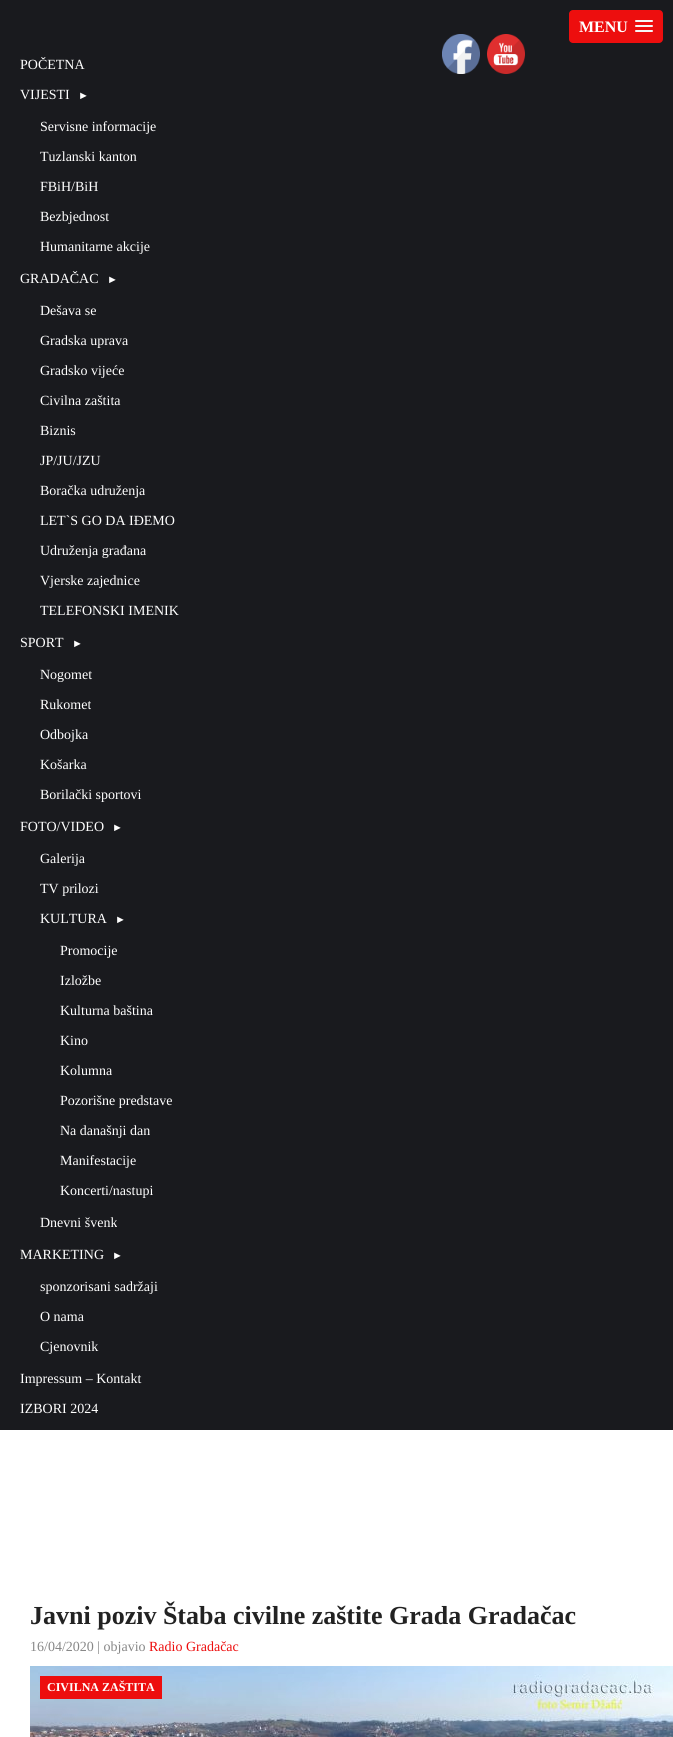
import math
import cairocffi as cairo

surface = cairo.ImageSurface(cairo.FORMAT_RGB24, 673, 1737)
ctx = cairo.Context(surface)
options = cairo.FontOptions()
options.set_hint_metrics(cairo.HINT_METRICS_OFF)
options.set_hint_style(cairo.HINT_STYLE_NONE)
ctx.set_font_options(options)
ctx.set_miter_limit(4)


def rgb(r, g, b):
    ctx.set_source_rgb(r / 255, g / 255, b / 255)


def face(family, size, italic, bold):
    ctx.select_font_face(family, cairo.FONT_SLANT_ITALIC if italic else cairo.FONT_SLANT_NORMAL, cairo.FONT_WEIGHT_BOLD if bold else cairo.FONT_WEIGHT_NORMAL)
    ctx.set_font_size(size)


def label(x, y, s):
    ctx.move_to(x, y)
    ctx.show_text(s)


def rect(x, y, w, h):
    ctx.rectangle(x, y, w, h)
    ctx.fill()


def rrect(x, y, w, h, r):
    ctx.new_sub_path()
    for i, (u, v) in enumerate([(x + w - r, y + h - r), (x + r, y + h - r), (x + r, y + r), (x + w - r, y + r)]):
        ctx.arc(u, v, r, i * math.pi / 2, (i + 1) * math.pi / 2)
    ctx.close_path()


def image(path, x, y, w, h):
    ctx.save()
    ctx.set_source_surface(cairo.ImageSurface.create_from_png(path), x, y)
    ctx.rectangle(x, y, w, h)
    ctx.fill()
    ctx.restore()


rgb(25, 26, 30)
ctx.paint()
rgb(237, 14, 14)
rrect(569, 10, 94, 33, 4)
ctx.fill()
face('Liberation Serif', 16, 0, 1)
rgb(255, 255, 255)
label(579, 32, 'MENU')
rgb(245, 245, 245)
rrect(635, 20, 18, 2, 1)
ctx.fill()
rrect(635, 25, 18, 2, 1)
ctx.fill()
rrect(635, 30, 18, 2, 1)
ctx.fill()
face('Liberation Serif', 14, 0, 0)
rgb(255, 255, 255)
label(20, 69, 'POČETNA')
label(20, 99, 'VIJESTI')
face('Liberation Serif', 11, 0, 0)
label(78, 99, '►')
face('Liberation Serif', 14, 0, 0)
label(40, 131, 'Servisne informacije')
label(40, 161, 'Tuzlanski kanton')
label(40, 191, 'FBiH/BiH')
label(40, 221, 'Bezbjednost')
label(40, 251, 'Humanitarne akcije')
label(20, 283, 'GRADAČAC')
face('Liberation Serif', 11, 0, 0)
label(107, 283, '►')
face('Liberation Serif', 14, 0, 0)
label(40, 315, 'Dešava se')
label(40, 345, 'Gradska uprava')
label(40, 375, 'Gradsko vijeće')
label(40, 405, 'Civilna zaštita')
label(40, 435, 'Biznis')
label(40, 465, 'JP/JU/JZU')
label(40, 495, 'Boračka udruženja')
label(40, 525, 'LET`S GO DA IĐEMO')
label(40, 555, 'Udruženja građana')
label(40, 585, 'Vjerske zajednice')
label(40, 615, 'TELEFONSKI IMENIK')
label(20, 647, 'SPORT')
face('Liberation Serif', 11, 0, 0)
label(72, 647, '►')
face('Liberation Serif', 14, 0, 0)
label(40, 679, 'Nogomet')
label(40, 709, 'Rukomet')
label(40, 739, 'Odbojka')
label(40, 769, 'Košarka')
label(40, 799, 'Borilački sportovi')
label(20, 831, 'FOTO/VIDEO')
face('Liberation Serif', 11, 0, 0)
label(112, 831, '►')
face('Liberation Serif', 14, 0, 0)
label(40, 863, 'Galerija')
label(40, 893, 'TV prilozi')
label(40, 923, 'KULTURA')
face('Liberation Serif', 11, 0, 0)
label(115, 923, '►')
face('Liberation Serif', 14, 0, 0)
label(60, 955, 'Promocije')
label(60, 985, 'Izložbe')
label(60, 1015, 'Kulturna baština')
label(60, 1045, 'Kino')
label(60, 1075, 'Kolumna')
label(60, 1105, 'Pozorišne predstave')
label(60, 1135, 'Na današnji dan')
label(60, 1165, 'Manifestacije')
label(60, 1195, 'Koncerti/nastupi')
label(40, 1227, 'Dnevni švenk')
label(20, 1259, 'MARKETING')
face('Liberation Serif', 11, 0, 0)
label(112, 1259, '►')
face('Liberation Serif', 14, 0, 0)
label(40, 1291, 'sponzorisani sadržaji')
label(40, 1321, 'O nama')
label(40, 1351, 'Cjenovnik')
label(20, 1383, 'Impressum – Kontakt')
label(20, 1413, 'IZBORI 2024')
image('image0.png', 442, 34, 38, 40)
image('image1.png', 487, 34, 38, 40)
rect(0, 1430, 673, 307)
face('Liberation Serif', 26, 0, 1)
rgb(34, 34, 34)
label(30, 1624, 'Javni poziv Štaba civilne zaštite Grada Gradačac')
face('Liberation Serif', 14, 0, 0)
rgb(136, 136, 136)
label(30, 1651, '16/04/2020 | objavio')
rgb(237, 14, 14)
label(149, 1651, 'Radio Gradačac')
image('image2.png', 30, 1666, 643, 71)
rect(40, 1676, 122, 23)
face('Liberation Serif', 12, 0, 1)
rgb(255, 255, 255)
label(47, 1691, 'CIVILNA ZAŠTITA')
surface.write_to_png('render.png')
